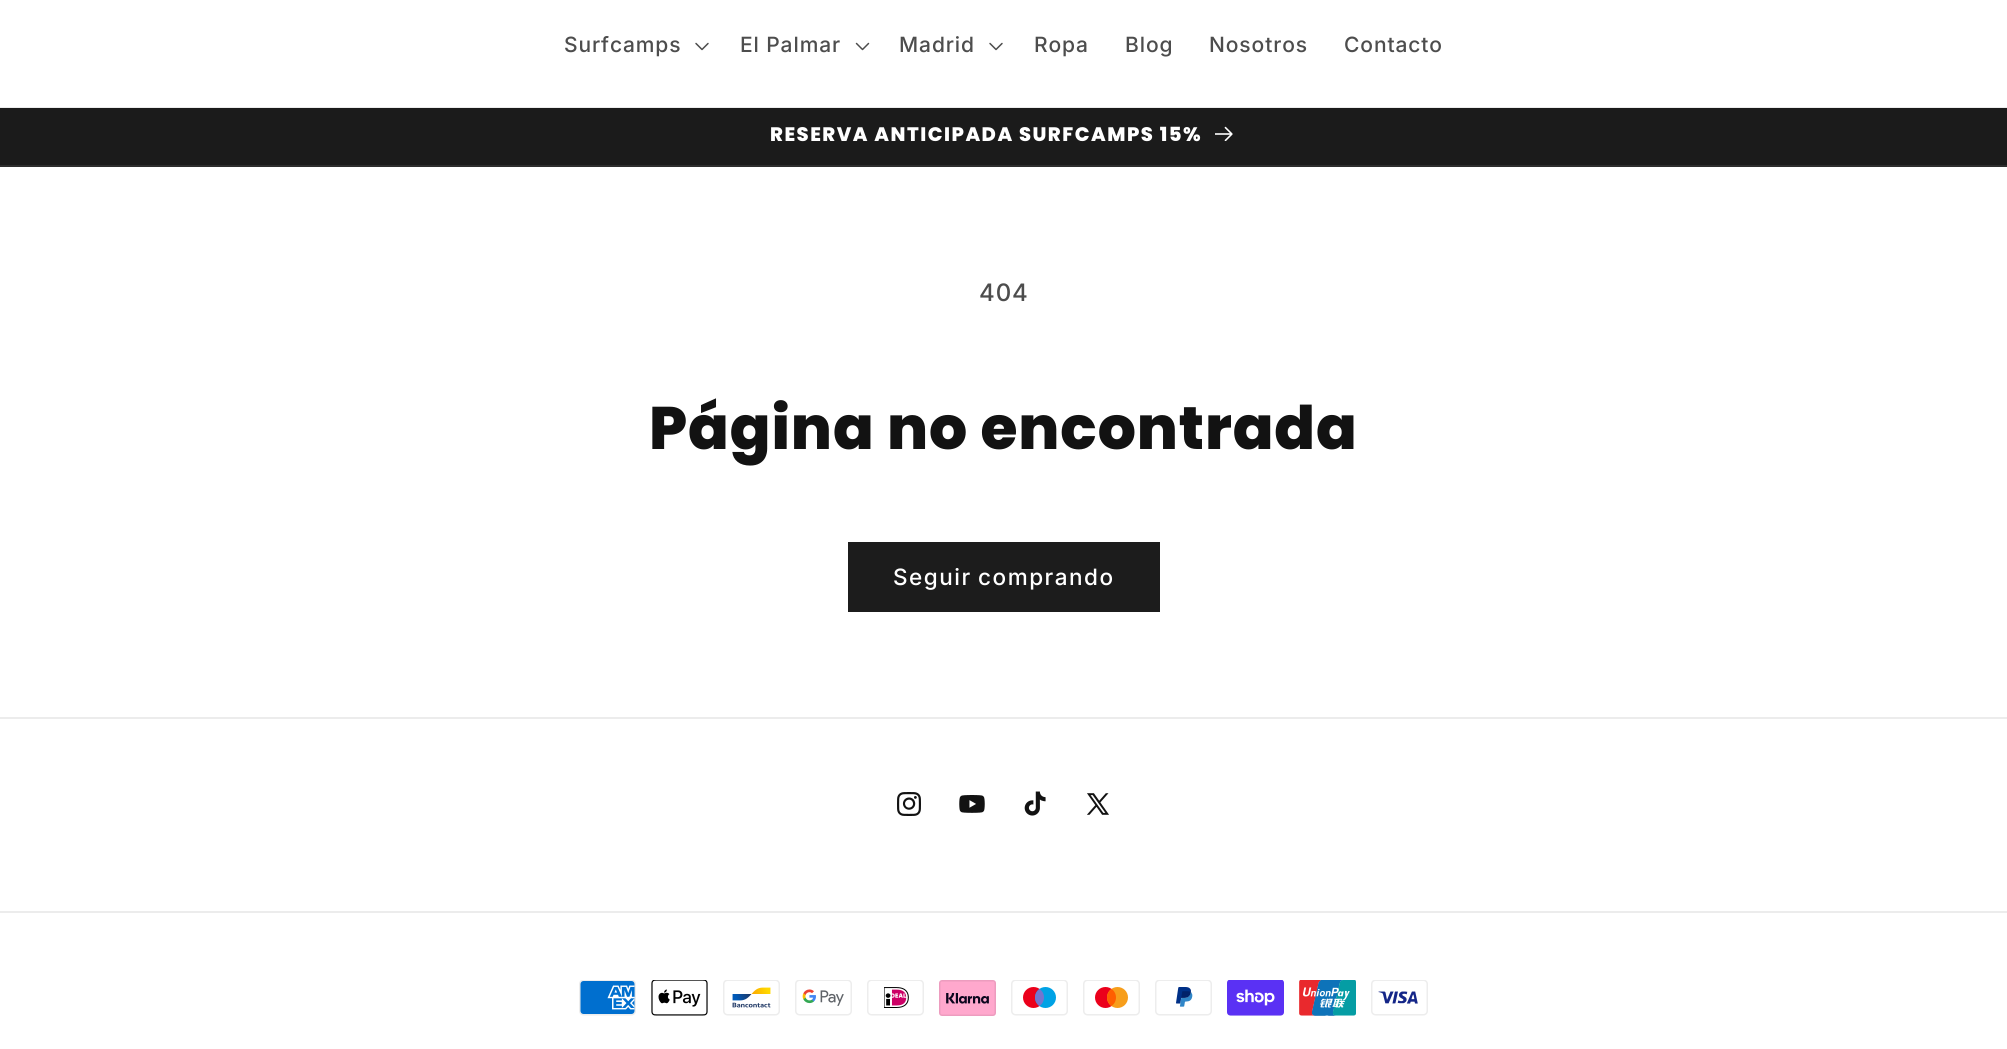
import math
import cairocffi as cairo

surface = cairo.ImageSurface(cairo.FORMAT_RGB24, 2007, 1049)
ctx = cairo.Context(surface)
options = cairo.FontOptions()
options.set_hint_metrics(cairo.HINT_METRICS_OFF)
options.set_hint_style(cairo.HINT_STYLE_NONE)
ctx.set_font_options(options)
ctx.set_miter_limit(4)


def rgb(r, g, b):
    ctx.set_source_rgb(r / 255, g / 255, b / 255)


def face(family, size, italic, bold):
    ctx.select_font_face(family, cairo.FONT_SLANT_ITALIC if italic else cairo.FONT_SLANT_NORMAL, cairo.FONT_WEIGHT_BOLD if bold else cairo.FONT_WEIGHT_NORMAL)
    ctx.set_font_size(size)


def tracked(x, y, s, letter, word):
    ctx.move_to(x, y)
    for ch in s:
        ctx.show_text(ch)
        ctx.rel_move_to(letter + word * (ch == ' '), 0)


def rect(x, y, w, h):
    ctx.rectangle(x, y, w, h)
    ctx.fill()


def image(path, x, y, w, h):
    ctx.save()
    ctx.set_source_surface(cairo.ImageSurface.create_from_png(path), x, y)
    ctx.rectangle(x, y, w, h)
    ctx.fill()
    ctx.restore()


rgb(255, 255, 255)
ctx.paint()
rgb(236, 236, 236)
rect(0, 107, 2007, 1)
face('Inter Medium', 21, 0, 0)
rgb(77, 77, 77)
tracked(564, 52, 'Surfcamps', 0.9, 0)
image('image0.png', 695, 42, 14, 9)
tracked(740, 52, 'El Palmar', 0.9, 0)
image('image1.png', 855, 42, 15, 9)
tracked(899, 52, 'Madrid', 0.9, 0)
image('image0.png', 989, 42, 14, 9)
tracked(1034, 52, 'Ropa', 0.9, 0)
tracked(1125, 52, 'Blog', 0.9, 0)
tracked(1209, 52, 'Nosotros', 0.9, 0)
tracked(1344, 52, 'Contacto', 0.9, 0)
rgb(27, 27, 27)
rect(0, 109, 2007, 56)
rgb(26, 26, 26)
rect(0, 108, 2007, 1)
rgb(45, 45, 45)
rect(0, 165, 2007, 2)
face('Poppins ExtraBold', 19.5, 0, 0)
rgb(255, 255, 255)
tracked(770, 141, 'RESERVA ANTICIPADA SURFCAMPS 15%', 1.5, 0)
image('image2.png', 1215, 126, 18, 15)
face('Inter Medium', 24, 0, 0)
rgb(77, 77, 77)
tracked(979, 301, '404', 0.9, 0)
face('Poppins ExtraBold', 60, 0, 0)
rgb(18, 18, 18)
tracked(649, 449, 'Página no encontrada', 0.9, 0)
rgb(28, 28, 28)
rect(848, 542, 312, 70)
face('Inter Medium', 22.5, 0, 0)
rgb(255, 255, 255)
tracked(893, 585, 'Seguir comprando', 1.5, -1)
rgb(236, 236, 236)
rect(0, 717, 2007, 2)
image('image3.png', 897, 792, 24, 24)
image('image4.png', 959, 795, 26, 18)
image('image5.png', 1024, 791, 22, 25)
image('image6.png', 1087, 793, 22, 22)
rect(0, 911, 2007, 2)
image('image7.png', 579, 980, 57, 36)
image('image8.png', 651, 980, 57, 36)
image('image9.png', 723, 980, 57, 36)
image('image10.png', 795, 980, 57, 36)
image('image11.png', 867, 980, 57, 36)
image('image12.png', 939, 980, 57, 36)
image('image13.png', 1011, 980, 57, 36)
image('image14.png', 1083, 980, 57, 36)
image('image15.png', 1155, 980, 57, 36)
image('image16.png', 1227, 980, 57, 36)
image('image17.png', 1299, 980, 57, 36)
image('image18.png', 1371, 980, 57, 36)
surface.write_to_png('render.png')
